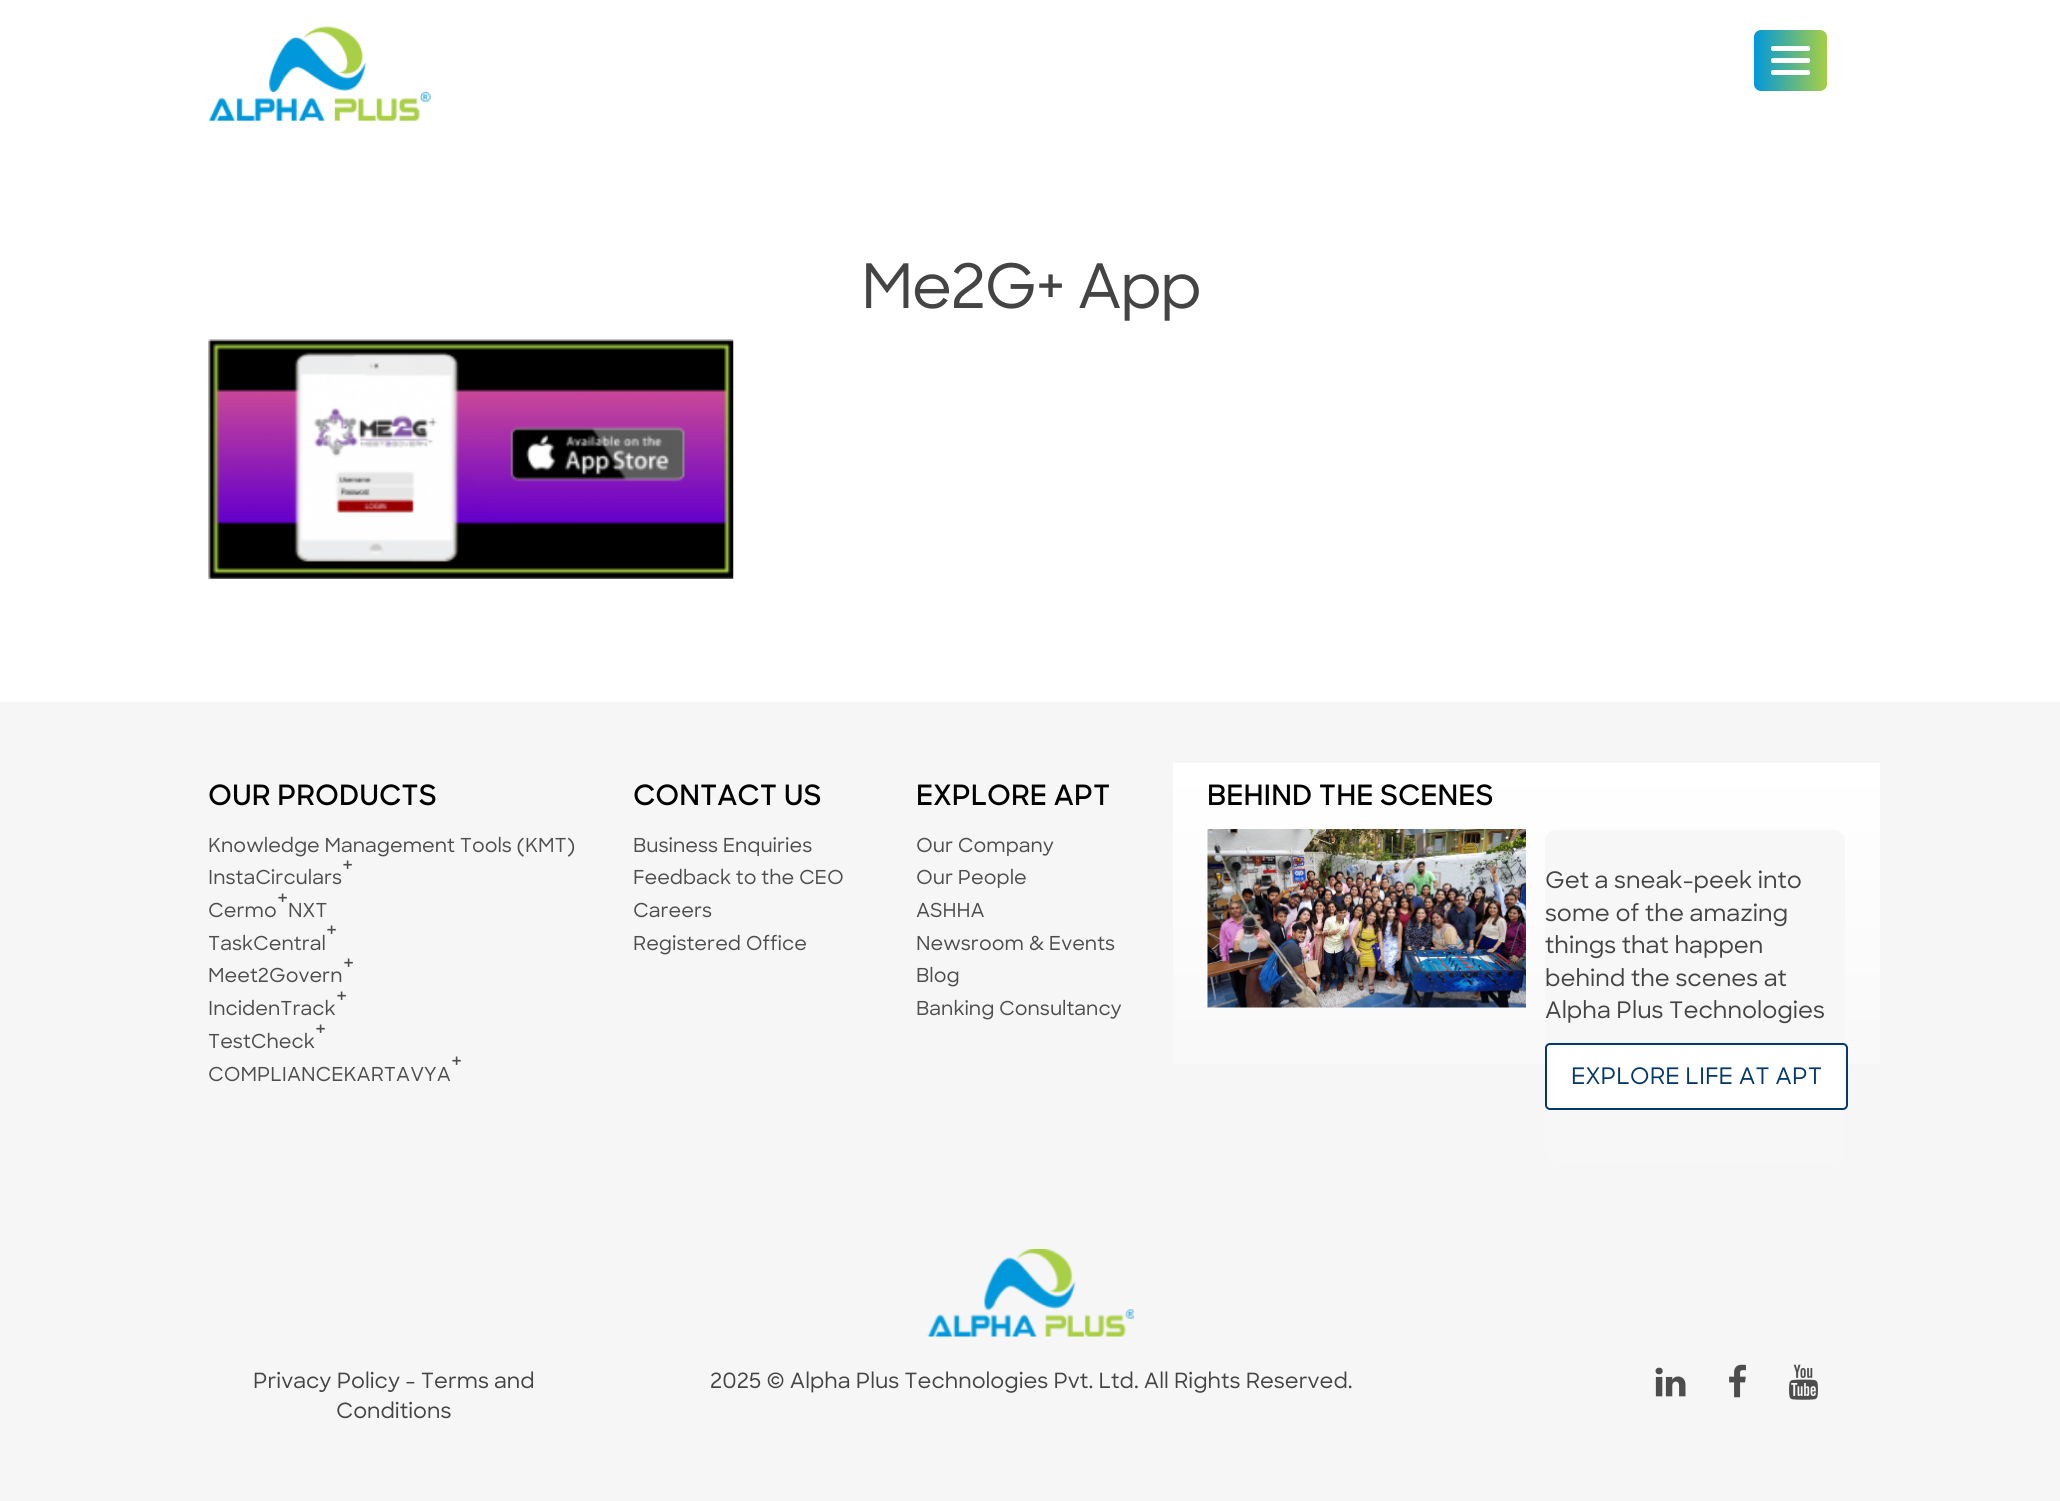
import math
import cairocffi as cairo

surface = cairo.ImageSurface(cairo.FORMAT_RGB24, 2060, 1501)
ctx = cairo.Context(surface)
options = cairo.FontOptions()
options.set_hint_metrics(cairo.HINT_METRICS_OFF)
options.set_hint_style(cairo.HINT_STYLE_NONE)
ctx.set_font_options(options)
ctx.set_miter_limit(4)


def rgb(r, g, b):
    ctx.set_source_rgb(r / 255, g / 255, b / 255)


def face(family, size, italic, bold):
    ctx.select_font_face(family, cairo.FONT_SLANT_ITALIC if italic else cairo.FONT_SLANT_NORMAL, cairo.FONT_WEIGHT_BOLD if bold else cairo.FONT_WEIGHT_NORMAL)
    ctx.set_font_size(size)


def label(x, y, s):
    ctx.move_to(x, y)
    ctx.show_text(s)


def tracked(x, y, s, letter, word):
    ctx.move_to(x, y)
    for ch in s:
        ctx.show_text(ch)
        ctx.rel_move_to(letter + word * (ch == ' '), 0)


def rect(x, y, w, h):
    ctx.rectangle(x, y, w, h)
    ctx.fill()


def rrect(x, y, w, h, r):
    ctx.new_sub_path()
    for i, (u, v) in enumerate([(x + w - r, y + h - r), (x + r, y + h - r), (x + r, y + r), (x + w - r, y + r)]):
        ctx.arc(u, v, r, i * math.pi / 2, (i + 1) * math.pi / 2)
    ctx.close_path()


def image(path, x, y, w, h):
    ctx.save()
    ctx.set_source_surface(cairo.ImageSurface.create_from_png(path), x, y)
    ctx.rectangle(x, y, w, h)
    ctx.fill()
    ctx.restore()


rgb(255, 255, 255)
ctx.paint()
image('image0.png', 208, 26, 223, 95)
gradient = cairo.LinearGradient(1827, 60, 1754, 60)
gradient.add_color_stop_rgba(0, 0.659, 0.812, 0.271, 1)
gradient.add_color_stop_rgba(1, 0, 0.596, 0.855, 1)
ctx.set_source(gradient)
rrect(1754, 30, 73, 61, 7)
ctx.fill()
rgb(255, 255, 255)
rrect(1771, 46, 39, 5, 2)
ctx.fill()
rrect(1771, 58, 39, 5, 2)
ctx.fill()
rrect(1771, 70, 39, 5, 2)
ctx.fill()
face('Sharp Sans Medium', 61.25, 0, 0)
rgb(68, 68, 68)
tracked(861, 308, 'Me2G+ App', -1.75, 0)
image('image1.png', 208, 339, 526, 240)
rgb(246, 246, 247)
rect(0, 702, 2060, 799)
face('Sharp Sans SemiBold', 28, 0, 0)
rgb(0, 0, 0)
label(208, 805, 'OUR PRODUCTS')
face('Sharp Sans Medium', 19.25, 0, 0)
rgb(77, 77, 77)
label(208, 852, 'Knowledge Management Tools (KMT)')
face('Sharp Sans Medium', 22.75, 0, 0)
label(342, 873, '+')
face('Sharp Sans Medium', 19.25, 0, 0)
label(208, 884, 'InstaCirculars')
face('Sharp Sans Medium', 22.75, 0, 0)
label(277, 906, '+')
face('Sharp Sans Medium', 19.25, 0, 0)
label(208, 917, 'Cermo')
label(288, 917, 'NXT')
face('Sharp Sans Medium', 22.75, 0, 0)
label(326, 938, '+')
face('Sharp Sans Medium', 19.25, 0, 0)
label(208, 950, 'TaskCentral')
face('Sharp Sans Medium', 22.75, 0, 0)
label(343, 971, '+')
face('Sharp Sans Medium', 19.25, 0, 0)
label(208, 982, 'Meet2Govern')
face('Sharp Sans Medium', 22.75, 0, 0)
label(336, 1004, '+')
face('Sharp Sans Medium', 19.25, 0, 0)
label(208, 1015, 'IncidenTrack')
face('Sharp Sans Medium', 22.75, 0, 0)
label(315, 1037, '+')
face('Sharp Sans Medium', 19.25, 0, 0)
label(208, 1048, 'TestCheck')
face('Sharp Sans Medium', 22.75, 0, 0)
label(451, 1069, '+')
face('Sharp Sans Medium', 19.25, 0, 0)
label(208, 1081, 'COMPLIANCEKARTAVYA')
face('Sharp Sans SemiBold', 28, 0, 0)
rgb(0, 0, 0)
label(633, 805, 'CONTACT US')
face('Sharp Sans Medium', 19.25, 0, 0)
rgb(77, 77, 77)
label(633, 852, 'Business Enquiries')
label(633, 884, 'Feedback to the CEO')
label(633, 917, 'Careers')
label(633, 950, 'Registered Office')
face('Sharp Sans SemiBold', 28, 0, 0)
rgb(0, 0, 0)
label(916, 805, 'EXPLORE APT')
face('Sharp Sans Medium', 19.25, 0, 0)
rgb(77, 77, 77)
label(916, 852, 'Our Company')
label(916, 884, 'Our People')
label(916, 917, 'ASHHA')
label(916, 950, 'Newsroom & Events')
label(916, 982, 'Blog')
label(916, 1015, 'Banking Consultancy')
gradient = cairo.LinearGradient(1526, 763, 1526, 1180)
gradient.add_color_stop_rgba(0, 1, 1, 1, 1)
gradient.add_color_stop_rgba(1, 0.965, 0.965, 0.969, 1)
ctx.set_source(gradient)
rect(1173, 763, 707, 301)
face('Sharp Sans SemiBold', 28, 0, 0)
rgb(0, 0, 0)
label(1207, 805, 'BEHIND THE SCENES')
image('image2.png', 1207, 829, 319, 179)
rgb(247, 247, 247)
rrect(1545, 830, 300, 332, 11)
ctx.fill()
face('Sharp Sans Medium', 22.75, 0, 0)
rgb(68, 68, 68)
label(1545, 888, 'Get a sneak-peek into')
label(1545, 921, 'some of the amazing')
label(1545, 953, 'things that happen')
label(1545, 986, 'behind the scenes at')
label(1545, 1018, 'Alpha Plus Technologies')
rgb(255, 255, 255)
rrect(1546, 1044, 301, 65, 4)
ctx.fill_preserve()
rgb(5, 57, 107)
ctx.stroke()
label(1571, 1084, 'EXPLORE LIFE AT APT')
image('image3.png', 927, 1249, 207, 88)
face('Sharp Sans Medium', 21, 0, 0)
rgb(68, 68, 68)
label(253, 1388, 'Privacy Policy - Terms and')
label(336, 1418, 'Conditions')
label(710, 1388, '2025 © Alpha Plus Technologies Pvt. Ltd. All Rights Reserved.')
image('image4.png', 1655, 1367, 31, 30)
image('image5.png', 1729, 1364, 17, 34)
image('image6.png', 1789, 1364, 29, 36)
surface.write_to_png('render.png')
